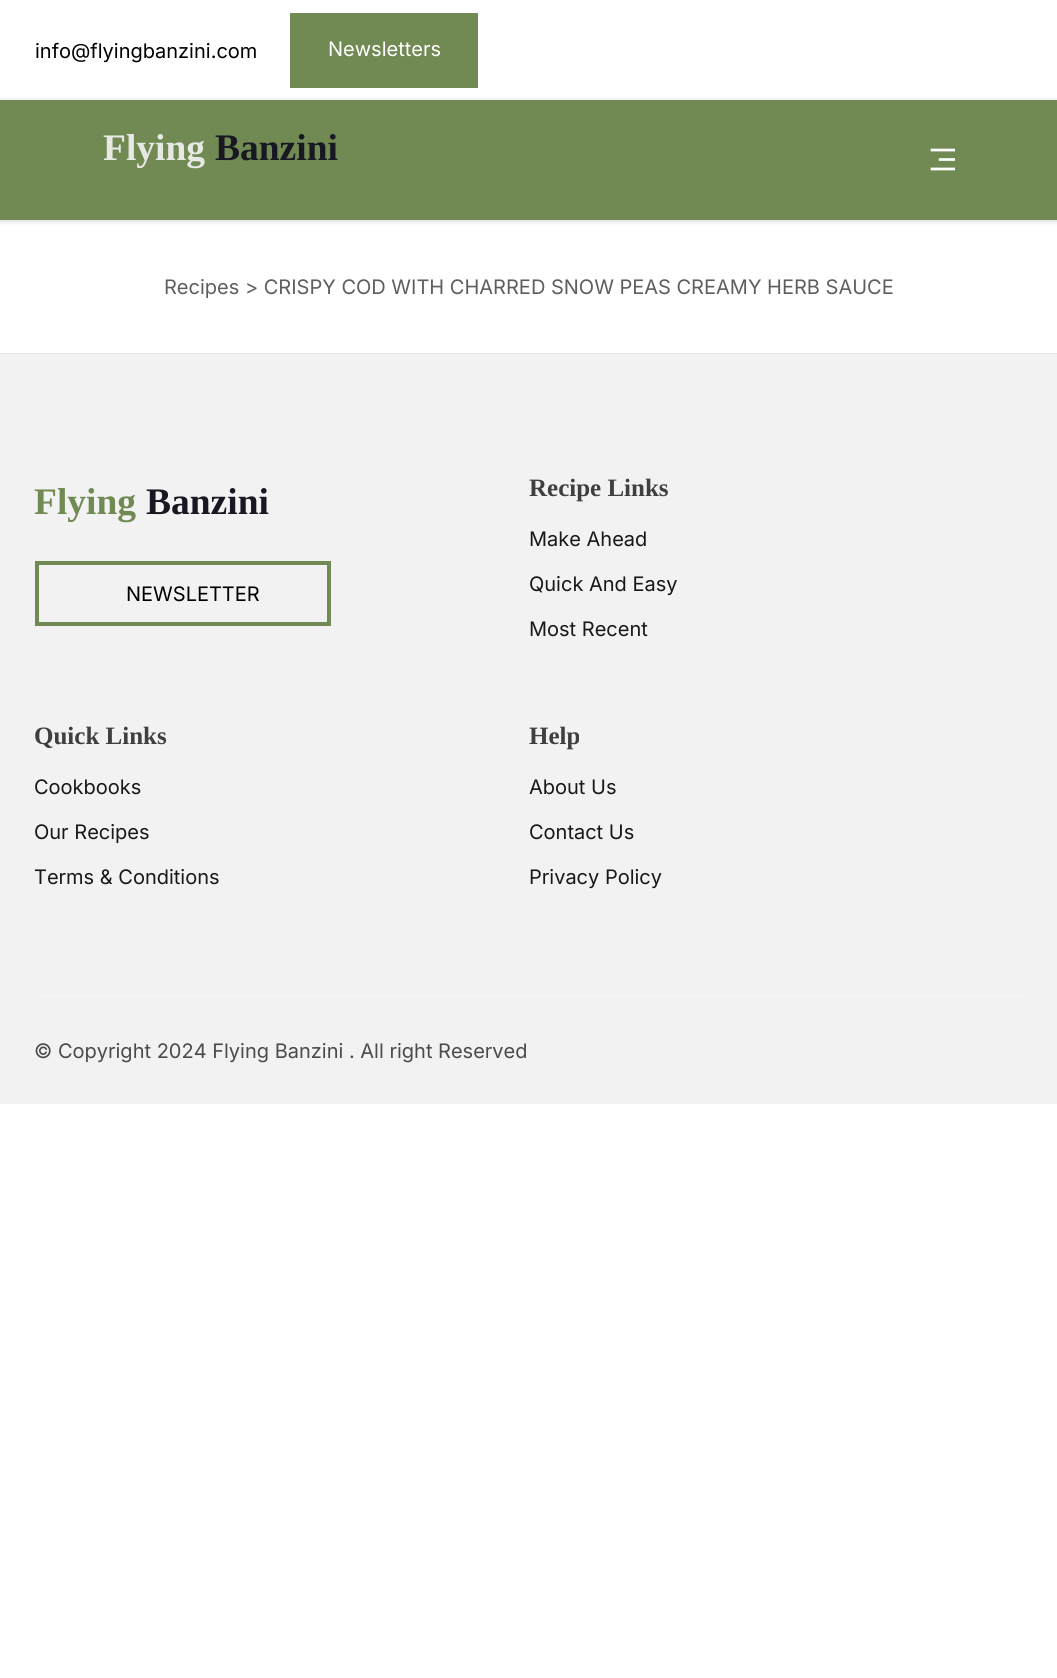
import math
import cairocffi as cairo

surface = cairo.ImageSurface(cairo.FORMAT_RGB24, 1057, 1678)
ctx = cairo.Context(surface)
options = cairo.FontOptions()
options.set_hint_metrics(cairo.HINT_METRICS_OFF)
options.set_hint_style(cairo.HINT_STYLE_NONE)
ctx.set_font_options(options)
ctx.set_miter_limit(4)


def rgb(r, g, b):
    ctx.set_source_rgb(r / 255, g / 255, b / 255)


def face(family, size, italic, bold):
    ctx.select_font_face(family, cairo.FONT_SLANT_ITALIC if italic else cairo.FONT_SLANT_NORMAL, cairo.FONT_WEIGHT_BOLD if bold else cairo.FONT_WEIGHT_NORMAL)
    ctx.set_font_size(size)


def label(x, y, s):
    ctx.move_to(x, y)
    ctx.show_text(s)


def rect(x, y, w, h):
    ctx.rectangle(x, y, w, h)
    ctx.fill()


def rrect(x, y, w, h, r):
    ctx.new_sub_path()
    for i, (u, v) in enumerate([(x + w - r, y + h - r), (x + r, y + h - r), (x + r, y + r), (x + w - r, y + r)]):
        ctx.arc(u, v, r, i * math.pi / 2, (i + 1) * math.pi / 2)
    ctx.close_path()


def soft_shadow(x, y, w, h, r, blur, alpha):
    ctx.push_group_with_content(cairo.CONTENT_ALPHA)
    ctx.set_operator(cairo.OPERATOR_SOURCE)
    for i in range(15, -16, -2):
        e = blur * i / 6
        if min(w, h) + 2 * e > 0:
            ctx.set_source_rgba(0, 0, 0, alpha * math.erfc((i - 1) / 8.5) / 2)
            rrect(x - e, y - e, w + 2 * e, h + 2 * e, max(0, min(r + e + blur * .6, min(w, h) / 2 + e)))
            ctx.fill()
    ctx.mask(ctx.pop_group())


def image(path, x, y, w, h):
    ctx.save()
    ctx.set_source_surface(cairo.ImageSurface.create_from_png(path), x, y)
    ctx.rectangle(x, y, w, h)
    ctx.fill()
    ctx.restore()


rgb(255, 255, 255)
ctx.paint()
face('Inter', 20, 0, 0)
rgb(0, 0, 0)
label(35, 58, 'info@flyingbanzini.com')
rgb(113, 137, 82)
rect(290, 13, 188, 75)
rgb(255, 255, 255)
label(328, 56, 'Newsletters')
rgb(0, 0, 0)
soft_shadow(0, 101, 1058, 120, 0, 2.5, 0.18)
rgb(113, 137, 82)
rect(0, 100, 1057, 120)
face('Liberation Serif', 37.5, 0, 1)
rgb(231, 233, 228)
label(103, 160, 'Flying')
rgb(24, 24, 35)
label(215, 160, 'Banzini')
image('image0.png', 930, 148, 25, 23)
face('Inter', 20, 0, 0)
rgb(94, 94, 94)
label(164, 294, 'Recipes > CRISPY COD WITH CHARRED SNOW PEAS CREAMY HERB SAUCE')
rgb(242, 242, 242)
rect(0, 354, 1057, 750)
rgb(226, 225, 227)
rect(0, 353, 1057, 1)
face('Liberation Serif', 37.5, 0, 1)
rgb(113, 137, 82)
label(34, 514, 'Flying')
rgb(24, 24, 35)
label(146, 514, 'Banzini')
ctx.rectangle(37, 563, 292, 61)
rgb(113, 137, 82)
ctx.set_line_width(4)
ctx.stroke()
face('Inter', 20, 0, 0)
rgb(0, 0, 0)
label(126, 601, 'NEWSLETTER')
face('Liberation Serif', 25, 0, 1)
rgb(64, 63, 63)
label(529, 496, 'Recipe Links')
face('Inter', 20, 0, 0)
rgb(24, 24, 24)
label(529, 546, 'Make Ahead')
label(529, 591, 'Quick And Easy')
label(529, 636, 'Most Recent')
face('Liberation Serif', 25, 0, 1)
rgb(64, 63, 63)
label(34, 744, 'Quick Links')
face('Inter', 20, 0, 0)
rgb(24, 24, 24)
label(34, 794, 'Cookbooks')
label(34, 839, 'Our Recipes')
label(34, 884, 'Terms & Conditions')
face('Liberation Serif', 25, 0, 1)
rgb(64, 63, 63)
label(529, 744, 'Help')
face('Inter', 20, 0, 0)
rgb(24, 24, 24)
label(529, 794, 'About Us')
label(529, 839, 'Contact Us')
label(529, 884, 'Privacy Policy')
rgb(246, 246, 246)
rect(35, 995, 989, 1)
rgb(75, 75, 75)
label(34, 1058, '© Copyright 2024 Flying Banzini . All right Reserved')
surface.write_to_png('render.png')
